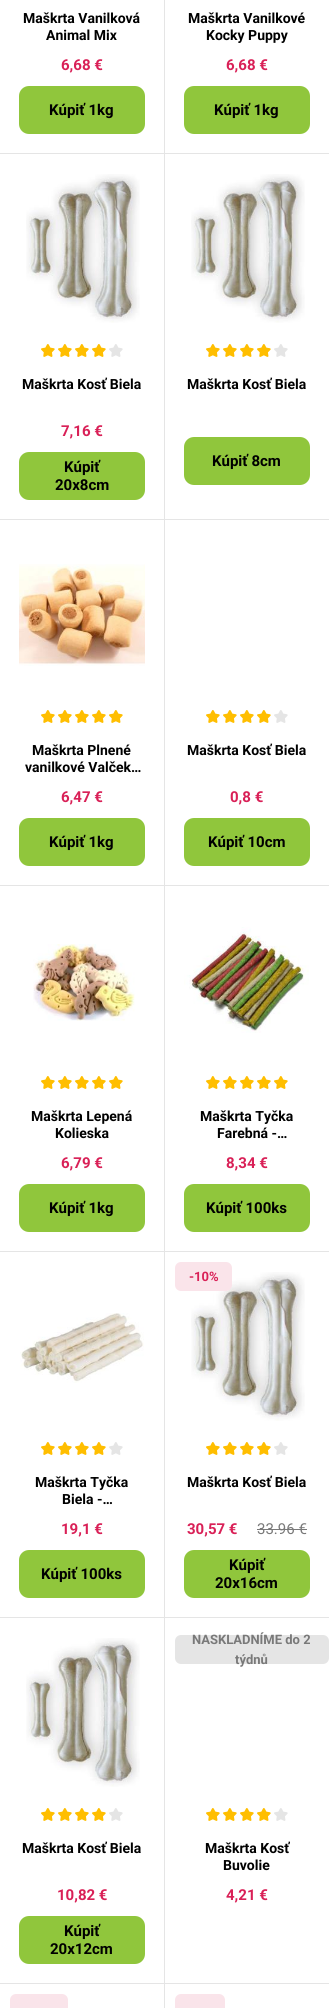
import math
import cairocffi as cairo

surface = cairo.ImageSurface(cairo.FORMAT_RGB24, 329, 2008)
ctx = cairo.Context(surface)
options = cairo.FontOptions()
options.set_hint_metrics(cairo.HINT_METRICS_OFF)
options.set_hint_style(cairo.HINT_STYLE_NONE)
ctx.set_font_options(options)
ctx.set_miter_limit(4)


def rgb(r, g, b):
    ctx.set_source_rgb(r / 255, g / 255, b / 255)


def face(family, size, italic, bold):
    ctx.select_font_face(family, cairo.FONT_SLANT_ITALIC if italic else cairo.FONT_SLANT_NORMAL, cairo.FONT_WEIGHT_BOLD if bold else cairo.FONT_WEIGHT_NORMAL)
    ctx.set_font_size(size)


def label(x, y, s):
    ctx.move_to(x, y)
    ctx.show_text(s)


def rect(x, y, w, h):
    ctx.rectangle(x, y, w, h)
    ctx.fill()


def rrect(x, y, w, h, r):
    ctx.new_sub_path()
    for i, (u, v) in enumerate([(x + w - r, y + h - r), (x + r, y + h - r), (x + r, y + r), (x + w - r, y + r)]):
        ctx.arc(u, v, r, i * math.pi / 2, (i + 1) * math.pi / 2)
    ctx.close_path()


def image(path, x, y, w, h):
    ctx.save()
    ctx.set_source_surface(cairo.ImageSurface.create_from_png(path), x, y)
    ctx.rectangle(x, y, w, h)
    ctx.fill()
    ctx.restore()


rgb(255, 255, 255)
ctx.paint()
rgb(229, 229, 229)
rect(164, 0, 1, 154)
face('Roboto', 14, 0, 1)
rgb(0, 0, 0)
label(23, 23, 'Maškrta Vanilková')
label(46, 40, 'Animal Mix')
face('Roboto', 15, 0, 1)
rgb(217, 32, 87)
label(61, 70, '6,68 €')
rgb(144, 198, 60)
rrect(19, 86, 126, 48, 10)
ctx.fill()
rgb(0, 0, 0)
label(49, 115, 'Kúpiť 1kg')
face('Roboto', 14, 0, 1)
label(188, 23, 'Maškrta Vanilkové')
label(206, 40, 'Kocky Puppy')
face('Roboto', 15, 0, 1)
rgb(217, 32, 87)
label(226, 70, '6,68 €')
rgb(144, 198, 60)
rrect(184, 86, 126, 48, 10)
ctx.fill()
rgb(0, 0, 0)
label(214, 115, 'Kúpiť 1kg')
rgb(229, 229, 229)
rect(0, 153, 329, 1)
rect(164, 153, 1, 367)
image('image0.png', 26, 174, 114, 149)
image('image1.png', 41, 344, 14, 13)
image('image1.png', 58, 344, 14, 13)
image('image1.png', 75, 344, 14, 13)
image('image1.png', 92, 344, 14, 13)
image('image2.png', 109, 344, 14, 13)
face('Roboto', 14, 0, 1)
rgb(0, 0, 0)
label(22, 389, 'Maškrta Kosť Biela')
face('Roboto', 15, 0, 1)
rgb(217, 32, 87)
label(61, 436, '7,16 €')
rgb(144, 198, 60)
rrect(19, 452, 126, 48, 10)
ctx.fill()
rgb(0, 0, 0)
label(64, 472, 'Kúpiť')
label(55, 490, '20x8cm')
image('image3.png', 191, 174, 114, 149)
image('image1.png', 206, 344, 14, 13)
image('image1.png', 223, 344, 14, 13)
image('image1.png', 240, 344, 14, 13)
image('image1.png', 257, 344, 14, 13)
image('image2.png', 274, 344, 14, 13)
face('Roboto', 14, 0, 1)
label(187, 389, 'Maškrta Kosť Biela')
rgb(144, 198, 60)
rrect(184, 437, 126, 48, 10)
ctx.fill()
face('Roboto', 15, 0, 1)
rgb(0, 0, 0)
label(212, 466, 'Kúpiť 8cm')
rgb(229, 229, 229)
rect(0, 519, 329, 1)
rect(164, 519, 1, 367)
image('image4.png', 19, 564, 126, 102)
image('image1.png', 41, 710, 14, 13)
image('image1.png', 58, 710, 14, 13)
image('image1.png', 75, 710, 14, 13)
image('image1.png', 92, 710, 14, 13)
image('image1.png', 109, 710, 14, 13)
face('Roboto', 14, 0, 1)
rgb(0, 0, 0)
label(32, 755, 'Maškrta Plnené')
label(25, 772, 'vanilkové Valček…')
face('Roboto', 15, 0, 1)
rgb(217, 32, 87)
label(61, 802, '6,47 €')
rgb(144, 198, 60)
rrect(19, 818, 126, 48, 10)
ctx.fill()
rgb(0, 0, 0)
label(49, 847, 'Kúpiť 1kg')
image('image1.png', 206, 710, 14, 13)
image('image1.png', 223, 710, 14, 13)
image('image1.png', 240, 710, 14, 13)
image('image1.png', 257, 710, 14, 13)
image('image2.png', 274, 710, 14, 13)
face('Roboto', 14, 0, 1)
label(187, 755, 'Maškrta Kosť Biela')
face('Roboto', 15, 0, 1)
rgb(217, 32, 87)
label(230, 802, '0,8 €')
rgb(144, 198, 60)
rrect(184, 818, 126, 48, 10)
ctx.fill()
rgb(0, 0, 0)
label(208, 847, 'Kúpiť 10cm')
rgb(229, 229, 229)
rect(0, 885, 329, 1)
rect(164, 885, 1, 367)
image('image5.png', 33, 944, 102, 77)
image('image1.png', 41, 1076, 14, 13)
image('image1.png', 58, 1076, 14, 13)
image('image1.png', 75, 1076, 14, 13)
image('image1.png', 92, 1076, 14, 13)
image('image1.png', 109, 1076, 14, 13)
face('Roboto', 14, 0, 1)
rgb(0, 0, 0)
label(31, 1121, 'Maškrta Lepená')
label(55, 1138, 'Kolieska')
face('Roboto', 15, 0, 1)
rgb(217, 32, 87)
label(61, 1168, '6,79 €')
rgb(144, 198, 60)
rrect(19, 1184, 126, 48, 10)
ctx.fill()
rgb(0, 0, 0)
label(49, 1213, 'Kúpiť 1kg')
image('image6.png', 184, 927, 125, 106)
image('image1.png', 206, 1076, 14, 13)
image('image1.png', 223, 1076, 14, 13)
image('image1.png', 240, 1076, 14, 13)
image('image1.png', 257, 1076, 14, 13)
image('image1.png', 274, 1076, 14, 13)
face('Roboto', 14, 0, 1)
label(200, 1121, 'Maškrta Tyčka')
label(217, 1138, 'Farebná -…')
face('Roboto', 15, 0, 1)
rgb(217, 32, 87)
label(226, 1168, '8,34 €')
rgb(144, 198, 60)
rrect(184, 1184, 126, 48, 10)
ctx.fill()
rgb(0, 0, 0)
label(206, 1213, 'Kúpiť 100ks')
rgb(229, 229, 229)
rect(0, 1251, 329, 1)
rect(164, 1251, 1, 367)
image('image7.png', 20, 1313, 124, 70)
image('image1.png', 41, 1442, 14, 13)
image('image1.png', 58, 1442, 14, 13)
image('image1.png', 75, 1442, 14, 13)
image('image1.png', 92, 1442, 14, 13)
image('image2.png', 109, 1442, 14, 13)
face('Roboto', 14, 0, 1)
rgb(0, 0, 0)
label(35, 1487, 'Maškrta Tyčka')
label(62, 1504, 'Biela -…')
face('Roboto', 15, 0, 1)
rgb(217, 32, 87)
label(61, 1534, '19,1 €')
rgb(144, 198, 60)
rrect(19, 1550, 126, 48, 10)
ctx.fill()
rgb(0, 0, 0)
label(41, 1579, 'Kúpiť 100ks')
image('image3.png', 191, 1272, 114, 149)
rgb(250, 228, 234)
rrect(175, 1262, 57, 29, 6)
ctx.fill()
face('Roboto', 13, 0, 1)
rgb(217, 32, 87)
label(189, 1281, '-10%')
image('image1.png', 206, 1442, 14, 13)
image('image1.png', 223, 1442, 14, 13)
image('image1.png', 240, 1442, 14, 13)
image('image1.png', 257, 1442, 14, 13)
image('image2.png', 274, 1442, 14, 13)
face('Roboto', 14, 0, 1)
rgb(0, 0, 0)
label(187, 1487, 'Maškrta Kosť Biela')
face('Roboto', 15, 0, 1)
rgb(217, 32, 87)
label(187, 1534, '30,57 €')
face('Roboto', 15, 0, 0)
rgb(121, 121, 121)
label(257, 1534, '33.96 €')
rect(257, 1529, 50, 1)
rgb(144, 198, 60)
rrect(184, 1550, 126, 48, 10)
ctx.fill()
face('Roboto', 15, 0, 1)
rgb(0, 0, 0)
label(229, 1570, 'Kúpiť')
label(215, 1588, '20x16cm')
rgb(229, 229, 229)
rect(0, 1617, 329, 1)
rect(164, 1617, 1, 367)
image('image0.png', 26, 1638, 114, 149)
image('image1.png', 41, 1808, 14, 13)
image('image1.png', 58, 1808, 14, 13)
image('image1.png', 75, 1808, 14, 13)
image('image1.png', 92, 1808, 14, 13)
image('image2.png', 109, 1808, 14, 13)
face('Roboto', 14, 0, 1)
rgb(0, 0, 0)
label(22, 1853, 'Maškrta Kosť Biela')
face('Roboto', 15, 0, 1)
rgb(217, 32, 87)
label(57, 1900, '10,82 €')
rgb(144, 198, 60)
rrect(19, 1916, 126, 48, 10)
ctx.fill()
rgb(0, 0, 0)
label(64, 1936, 'Kúpiť')
label(50, 1954, '20x12cm')
rgb(229, 229, 229)
rrect(175, 1635, 154, 29, 6)
ctx.fill()
face('Roboto', 13, 0, 1)
rgb(121, 121, 121)
label(192, 1644, 'NASKLADNÍME do 2')
label(235, 1664, 'týdnů')
image('image1.png', 206, 1808, 14, 13)
image('image1.png', 223, 1808, 14, 13)
image('image1.png', 240, 1808, 14, 13)
image('image1.png', 257, 1808, 14, 13)
image('image2.png', 274, 1808, 14, 13)
face('Roboto', 14, 0, 1)
rgb(0, 0, 0)
label(205, 1853, 'Maškrta Kosť')
label(223, 1870, 'Buvolie')
face('Roboto', 15, 0, 1)
rgb(217, 32, 87)
label(226, 1900, '4,21 €')
rgb(229, 229, 229)
rect(0, 1983, 329, 1)
rect(164, 1983, 1, 25)
rgb(250, 228, 234)
rrect(10, 1994, 58, 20, 6)
ctx.fill()
rrect(175, 1994, 50, 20, 6)
ctx.fill()
surface.write_to_png('render.png')
